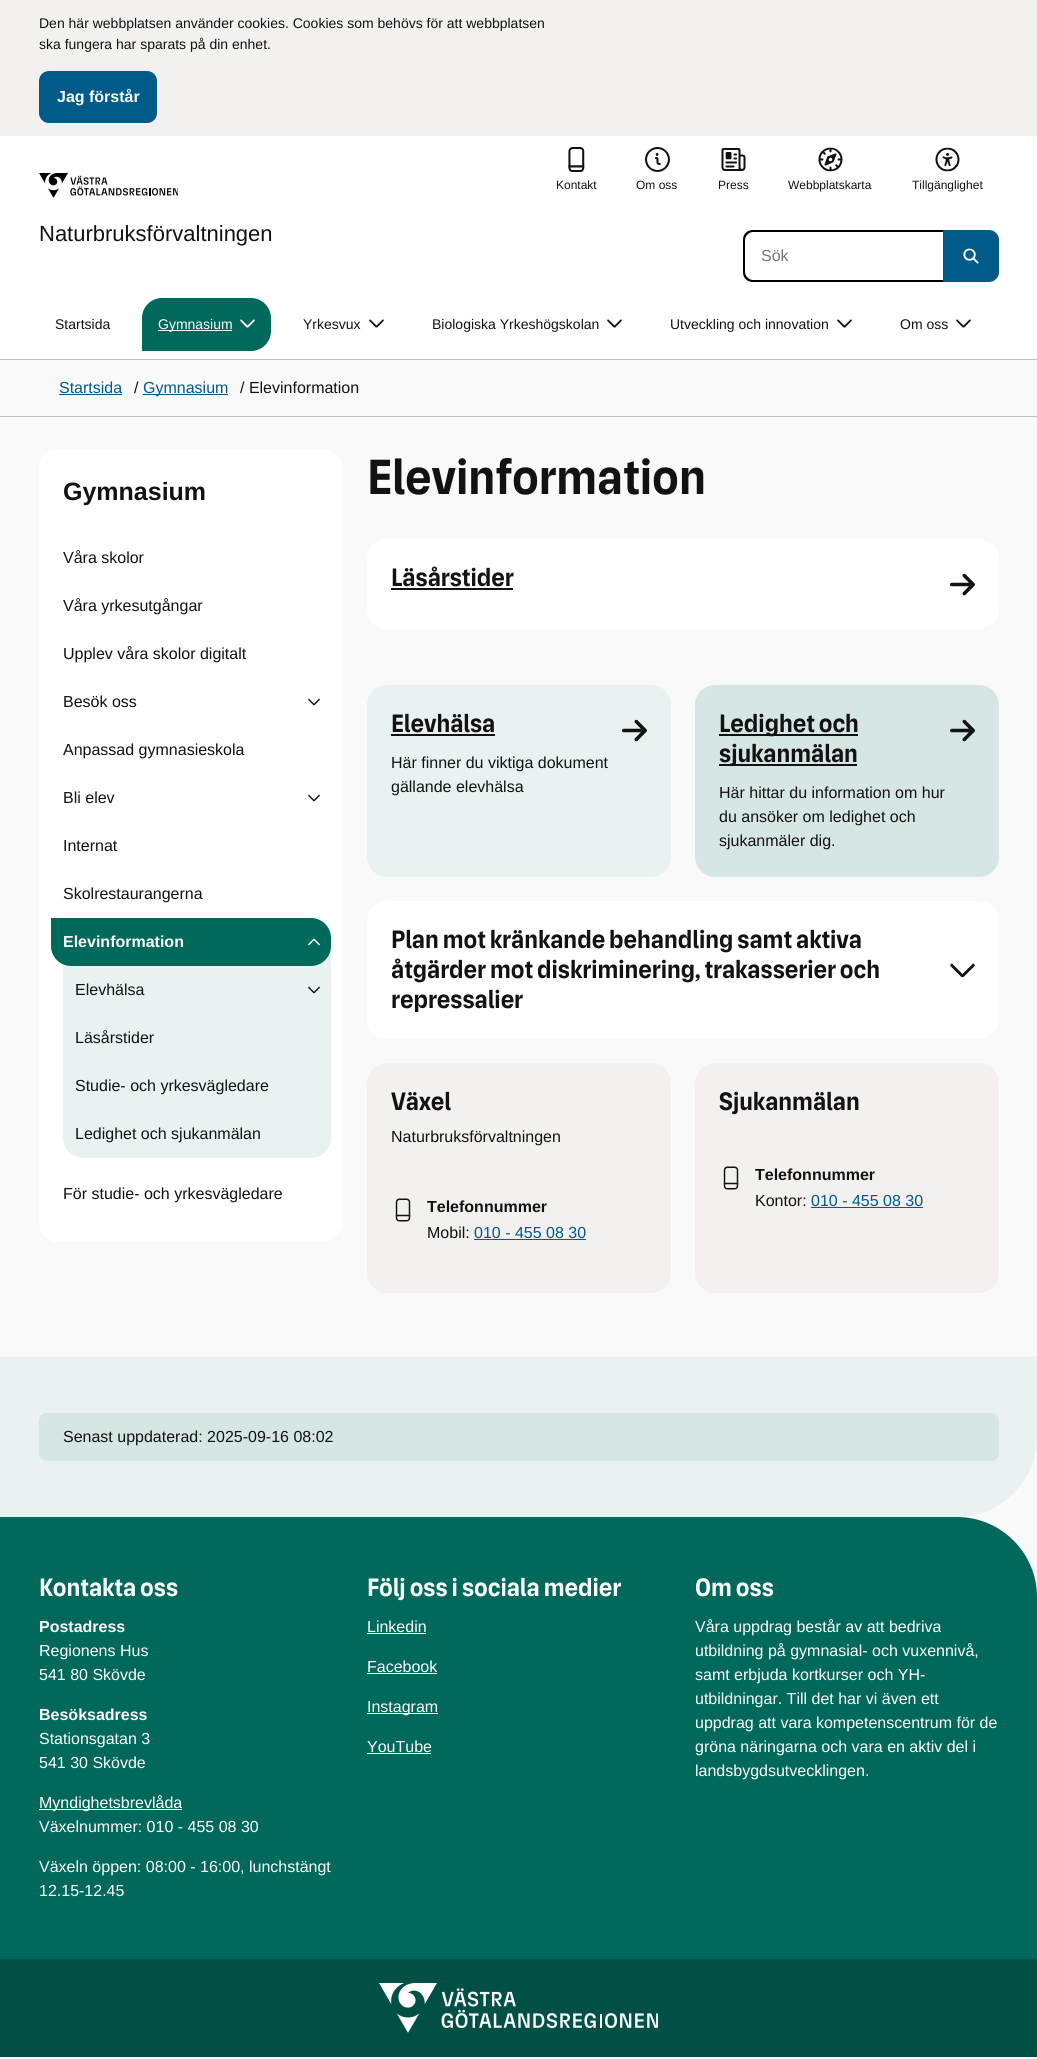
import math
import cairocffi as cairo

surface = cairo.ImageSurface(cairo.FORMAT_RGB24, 1037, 2059)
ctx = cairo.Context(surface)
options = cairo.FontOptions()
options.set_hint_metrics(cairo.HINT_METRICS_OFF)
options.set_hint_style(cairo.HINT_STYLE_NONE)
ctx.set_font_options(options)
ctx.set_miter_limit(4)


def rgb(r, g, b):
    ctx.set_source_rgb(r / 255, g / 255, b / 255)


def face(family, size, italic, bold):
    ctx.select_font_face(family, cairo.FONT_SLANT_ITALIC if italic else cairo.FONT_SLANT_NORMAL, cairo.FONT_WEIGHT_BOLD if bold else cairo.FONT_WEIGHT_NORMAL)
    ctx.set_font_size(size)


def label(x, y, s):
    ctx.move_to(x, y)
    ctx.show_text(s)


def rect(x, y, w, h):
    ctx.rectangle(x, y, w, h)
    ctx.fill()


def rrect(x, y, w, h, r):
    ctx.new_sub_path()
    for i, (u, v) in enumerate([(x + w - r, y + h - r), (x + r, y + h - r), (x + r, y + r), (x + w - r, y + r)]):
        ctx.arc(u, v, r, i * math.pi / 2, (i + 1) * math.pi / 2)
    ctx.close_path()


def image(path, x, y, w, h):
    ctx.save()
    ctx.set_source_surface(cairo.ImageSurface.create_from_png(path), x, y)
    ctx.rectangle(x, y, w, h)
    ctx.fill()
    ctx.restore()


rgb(250, 249, 249)
ctx.paint()
rgb(255, 255, 255)
rect(0, 136, 1037, 223)
rgb(243, 240, 239)
rect(0, 0, 1037, 136)
face('Liberation Sans', 14, 0, 0)
rgb(18, 18, 18)
label(39, 28, 'Den här webbplatsen använder cookies. Cookies som behövs för att webbplatsen')
label(39, 49, 'ska fungera har sparats på din enhet.')
rgb(0, 91, 137)
rrect(40, 72, 116, 50, 9)
ctx.fill_preserve()
ctx.stroke()
face('Liberation Sans', 16, 0, 1)
rgb(255, 255, 255)
label(57, 102, 'Jag förstår')
image('image0.png', 39, 173, 139, 25)
face('Liberation Sans', 22, 0, 0)
rgb(18, 18, 18)
label(39, 241, 'Naturbruksförvaltningen')
image('image1.png', 568, 147, 17, 25)
face('Liberation Sans', 12, 0, 0)
label(556, 189, 'Kontakt')
image('image2.png', 645, 147, 25, 25)
label(636, 189, 'Om oss')
image('image3.png', 721, 148, 25, 23)
label(718, 189, 'Press')
image('image4.png', 818, 147, 25, 25)
label(788, 189, 'Webbplatskarta')
image('image5.png', 935, 147, 25, 25)
label(912, 189, 'Tillgänglighet')
rgb(0, 0, 0)
ctx.set_fill_rule(cairo.FILL_RULE_EVEN_ODD)
ctx.new_path()
ctx.move_to(753, 230)
ctx.line_to(943, 230)
ctx.line_to(943, 282)
ctx.line_to(753, 282)
ctx.curve_to(747, 282, 743, 278, 743, 272)
ctx.line_to(743, 240)
ctx.curve_to(743, 234, 747, 230, 753, 230)
ctx.close_path()
ctx.move_to(753, 232)
ctx.line_to(943, 232)
ctx.line_to(943, 280)
ctx.line_to(753, 280)
ctx.curve_to(749, 280, 745, 276, 745, 272)
ctx.line_to(745, 240)
ctx.curve_to(745, 236, 749, 232, 753, 232)
ctx.close_path()
ctx.fill()
face('Liberation Sans', 16, 0, 0)
rgb(117, 117, 117)
label(761, 261, 'Sök')
rgb(0, 91, 137)
ctx.new_path()
ctx.move_to(944, 231)
ctx.line_to(989, 231)
ctx.curve_to(994, 231, 998, 235, 998, 240)
ctx.line_to(998, 272)
ctx.curve_to(998, 277, 994, 281, 989, 281)
ctx.line_to(944, 281)
ctx.close_path()
ctx.fill_preserve()
ctx.stroke()
image('image6.png', 963, 248, 16, 16)
face('Liberation Sans', 14, 0, 0)
rgb(18, 18, 18)
label(55, 329, 'Startsida')
rgb(0, 105, 92)
ctx.new_path()
ctx.move_to(162, 298)
ctx.line_to(251, 298)
ctx.curve_to(262, 298, 271, 307, 271, 318)
ctx.line_to(271, 331)
ctx.curve_to(271, 342, 262, 351, 251, 351)
ctx.line_to(142, 351)
ctx.line_to(142, 318)
ctx.curve_to(142, 307, 151, 298, 162, 298)
ctx.close_path()
ctx.fill()
rgb(255, 255, 255)
rect(158, 330, 74, 1)
label(158, 329, 'Gymnasium')
image('image7.png', 240, 319, 15, 9)
rgb(18, 18, 18)
label(303, 329, 'Yrkesvux')
image('image8.png', 369, 319, 15, 9)
label(432, 329, 'Biologiska Yrkeshögskolan')
image('image8.png', 607, 319, 15, 9)
label(670, 329, 'Utveckling och innovation')
image('image8.png', 837, 319, 15, 9)
label(900, 329, 'Om oss')
image('image8.png', 956, 319, 15, 9)
rgb(192, 191, 191)
rect(0, 359, 1037, 1)
face('Liberation Sans', 16, 0, 0)
rgb(0, 91, 137)
label(59, 393, 'Startsida')
rect(59, 394, 63, 1)
rgb(18, 18, 18)
label(134, 393, '/')
rgb(0, 91, 137)
rect(143, 394, 85, 1)
label(143, 393, 'Gymnasium')
rgb(18, 18, 18)
label(240, 393, '/ Elevinformation')
rgb(192, 191, 191)
rect(0, 416, 1037, 1)
rgb(255, 255, 255)
rrect(39, 449, 304, 793, 20)
ctx.fill()
face('Liberation Sans', 25, 0, 1)
rgb(18, 18, 18)
label(63, 500, 'Gymnasium')
face('Liberation Sans', 16, 0, 0)
label(63, 563, 'Våra skolor')
label(63, 611, 'Våra yrkesutgångar')
label(63, 659, 'Upplev våra skolor digitalt')
label(63, 707, 'Besök oss')
image('image9.png', 308, 698, 12, 8)
label(63, 755, 'Anpassad gymnasieskola')
label(63, 803, 'Bli elev')
image('image9.png', 308, 794, 12, 8)
label(63, 851, 'Internat')
label(63, 899, 'Skolrestaurangerna')
rgb(234, 242, 241)
ctx.new_path()
ctx.move_to(51, 918)
ctx.line_to(311, 918)
ctx.curve_to(322, 918, 331, 927, 331, 938)
ctx.line_to(331, 966)
ctx.line_to(71, 966)
ctx.curve_to(60, 966, 51, 957, 51, 946)
ctx.close_path()
ctx.fill()
rgb(0, 105, 92)
ctx.new_path()
ctx.move_to(51, 918)
ctx.line_to(311, 918)
ctx.curve_to(322, 918, 331, 927, 331, 938)
ctx.line_to(331, 946)
ctx.curve_to(331, 957, 322, 966, 311, 966)
ctx.line_to(71, 966)
ctx.curve_to(60, 966, 51, 957, 51, 946)
ctx.close_path()
ctx.fill()
face('Liberation Sans', 16, 0, 1)
rgb(255, 255, 255)
label(63, 947, 'Elevinformation')
image('image10.png', 308, 938, 12, 8)
rgb(234, 242, 241)
rect(63, 966, 268, 144)
face('Liberation Sans', 16, 0, 0)
rgb(18, 18, 18)
label(75, 995, 'Elevhälsa')
image('image11.png', 308, 986, 12, 8)
label(75, 1043, 'Läsårstider')
label(75, 1091, 'Studie- och yrkesvägledare')
rgb(234, 242, 241)
ctx.new_path()
ctx.move_to(63, 1110)
ctx.line_to(331, 1110)
ctx.line_to(331, 1138)
ctx.curve_to(331, 1149, 322, 1158, 311, 1158)
ctx.line_to(83, 1158)
ctx.curve_to(72, 1158, 63, 1149, 63, 1138)
ctx.close_path()
ctx.fill()
rgb(18, 18, 18)
label(75, 1139, 'Ledighet och sjukanmälan')
label(63, 1199, 'För studie- och yrkesvägledare')
face('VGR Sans', 49, 0, 1)
label(367, 494, 'Elevinformation')
rgb(255, 255, 255)
rrect(367, 539, 632, 90, 20)
ctx.fill()
face('VGR Sans', 25, 0, 1)
rgb(18, 18, 18)
label(391, 586, 'Läsårstider')
rect(391, 588, 122, 2)
image('image12.png', 950, 573, 25, 23)
rgb(234, 242, 241)
rrect(367, 685, 304, 192, 20)
ctx.fill()
rgb(18, 18, 18)
label(391, 732, 'Elevhälsa')
rect(391, 734, 104, 2)
face('Liberation Sans', 16, 0, 0)
label(391, 768, 'Här finner du viktiga dokument')
label(391, 792, 'gällande elevhälsa')
image('image13.png', 622, 719, 25, 23)
rgb(213, 230, 228)
rrect(695, 685, 304, 192, 20)
ctx.fill()
rgb(18, 18, 18)
rect(719, 734, 139, 2)
face('VGR Sans', 25, 0, 1)
label(719, 732, 'Ledighet och')
rect(719, 764, 138, 2)
label(719, 762, 'sjukanmälan')
face('Liberation Sans', 16, 0, 0)
label(719, 798, 'Här hittar du information om hur')
label(719, 822, 'du ansöker om ledighet och')
label(719, 846, 'sjukanmäler dig.')
image('image14.png', 950, 719, 25, 23)
rgb(255, 255, 255)
rrect(367, 901, 632, 138, 20)
ctx.fill()
face('VGR Sans', 25, 0, 1)
rgb(18, 18, 18)
label(391, 948, 'Plan mot kränkande behandling samt aktiva')
label(391, 978, 'åtgärder mot diskriminering, trakasserier och')
label(391, 1008, 'repressalier')
image('image15.png', 950, 963, 25, 15)
rgb(243, 240, 239)
rrect(367, 1063, 304, 230, 20)
ctx.fill()
rgb(18, 18, 18)
label(391, 1110, 'Växel')
face('Liberation Sans', 16, 0, 0)
label(391, 1142, 'Naturbruksförvaltningen')
image('image16.png', 395, 1198, 16, 24)
face('Liberation Sans', 16, 0, 1)
label(427, 1212, 'Telefonnummer')
face('Liberation Sans', 16, 0, 0)
label(427, 1238, 'Mobil:')
rgb(0, 91, 137)
label(474, 1238, '010 - 455 08 30')
rect(474, 1239, 112, 1)
rgb(243, 240, 239)
rrect(695, 1063, 304, 230, 20)
ctx.fill()
face('VGR Sans', 25, 0, 1)
rgb(18, 18, 18)
label(719, 1110, 'Sjukanmälan')
image('image16.png', 723, 1166, 16, 24)
face('Liberation Sans', 16, 0, 1)
label(755, 1180, 'Telefonnummer')
face('Liberation Sans', 16, 0, 0)
label(755, 1206, 'Kontor:')
rgb(0, 91, 137)
label(811, 1206, '010 - 455 08 30')
rect(811, 1207, 112, 1)
rgb(234, 242, 241)
ctx.new_path()
ctx.move_to(0, 1357)
ctx.line_to(1037, 1357)
ctx.line_to(1037, 1437)
ctx.curve_to(1037, 1481, 1001, 1517, 957, 1517)
ctx.line_to(0, 1517)
ctx.close_path()
ctx.fill()
rgb(213, 230, 228)
rrect(39, 1413, 960, 48, 8)
ctx.fill()
rgb(18, 18, 18)
label(63, 1442, 'Senast uppdaterad: 2025-09-16 08:02')
rgb(0, 105, 92)
ctx.new_path()
ctx.move_to(0, 1517)
ctx.line_to(957, 1517)
ctx.curve_to(1001, 1517, 1037, 1553, 1037, 1597)
ctx.line_to(1037, 2057)
ctx.line_to(0, 2057)
ctx.close_path()
ctx.fill()
face('VGR Sans', 25, 0, 1)
rgb(255, 255, 255)
label(39, 1596, 'Kontakta oss')
face('Liberation Sans', 16, 0, 1)
label(39, 1632, 'Postadress')
face('Liberation Sans', 16, 0, 0)
label(39, 1656, 'Regionens Hus')
label(39, 1680, '541 80 Skövde')
face('Liberation Sans', 16, 0, 1)
label(39, 1720, 'Besöksadress')
face('Liberation Sans', 16, 0, 0)
label(39, 1744, 'Stationsgatan 3')
label(39, 1768, '541 30 Skövde')
rect(39, 1809, 143, 1)
label(39, 1808, 'Myndighetsbrevlåda')
label(39, 1832, 'Växelnummer: 010 - 455 08 30')
label(39, 1872, 'Växeln öppen: 08:00 - 16:00, lunchstängt')
label(39, 1896, '12.15-12.45')
face('VGR Sans', 25, 0, 1)
label(367, 1596, 'Följ oss i sociala medier')
face('Liberation Sans', 16, 0, 0)
label(367, 1632, 'Linkedin')
rect(367, 1633, 59, 1)
label(367, 1672, 'Facebook')
rect(367, 1673, 70, 1)
rect(367, 1713, 71, 1)
label(367, 1712, 'Instagram')
label(367, 1752, 'YouTube')
rect(367, 1753, 64, 1)
face('VGR Sans', 25, 0, 1)
label(695, 1596, 'Om oss')
face('Liberation Sans', 16, 0, 0)
label(695, 1632, 'Våra uppdrag består av att bedriva')
label(695, 1656, 'utbildning på gymnasial- och vuxennivå,')
label(695, 1680, 'samt erbjuda kortkurser och YH-')
label(695, 1704, 'utbildningar. Till det har vi även ett')
label(695, 1728, 'uppdrag att vara kompetenscentrum för de')
label(695, 1752, 'gröna näringarna och vara en aktiv del i')
label(695, 1776, 'landsbygdsutvecklingen.')
rgb(0, 80, 70)
rect(0, 1959, 1037, 98)
image('image17.png', 379, 1983, 279, 50)
surface.write_to_png('render.png')
